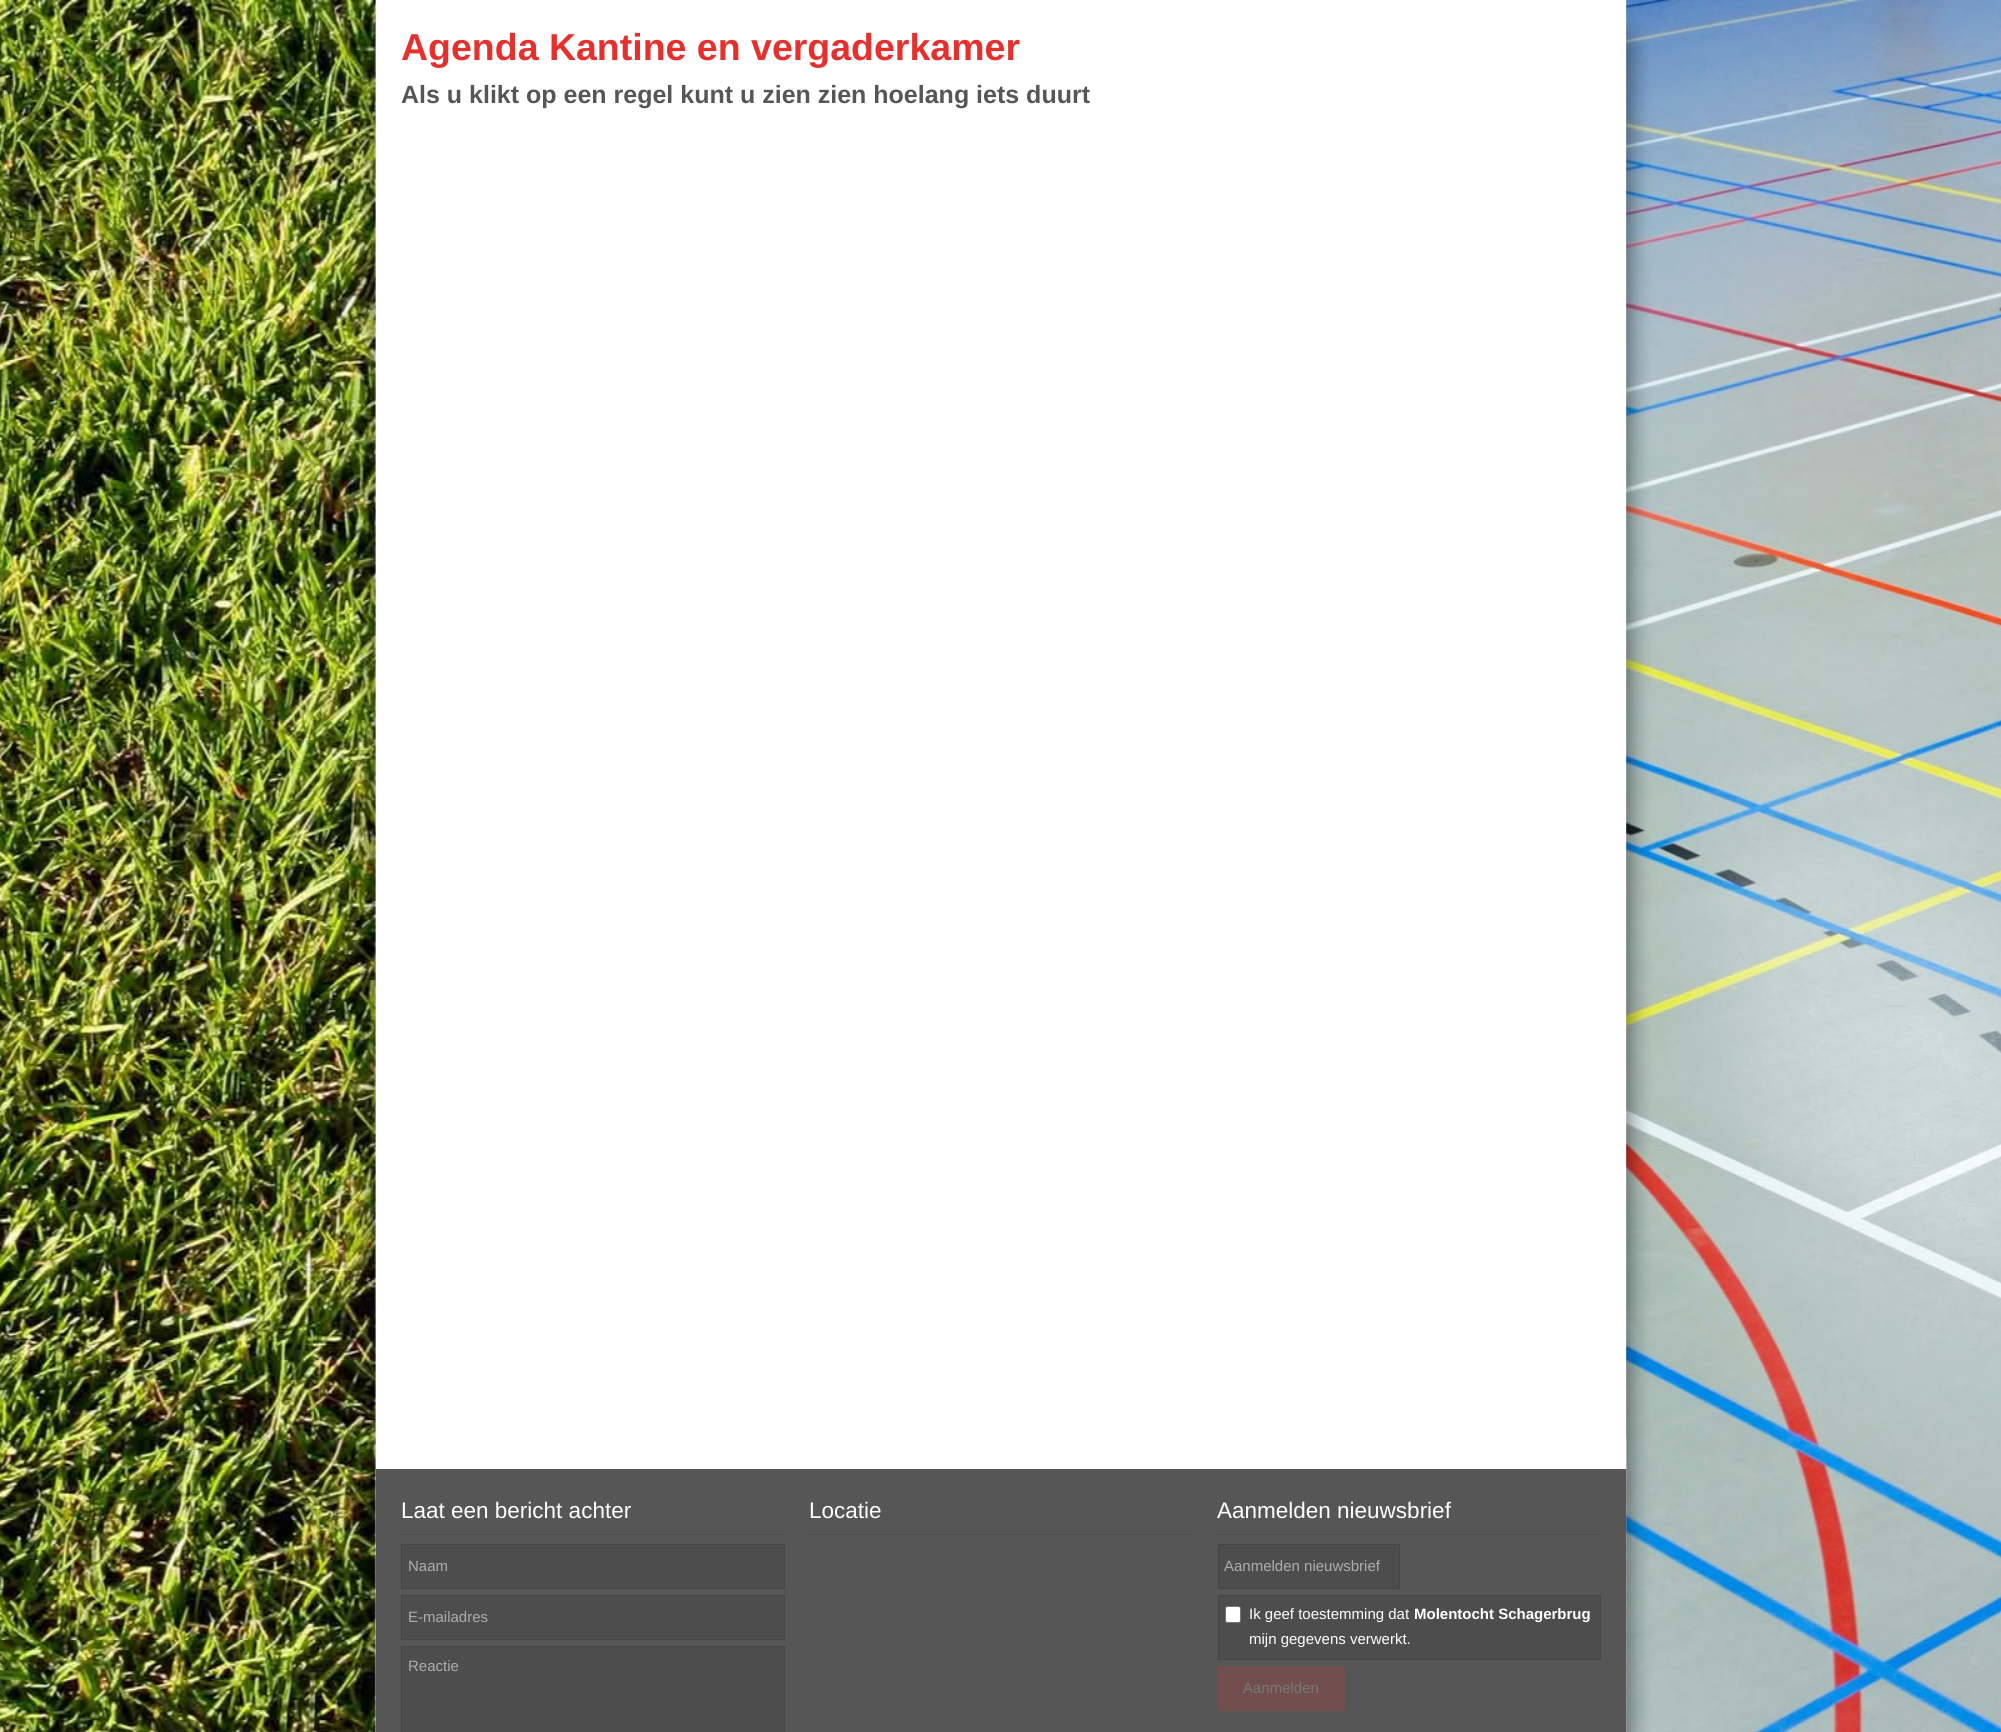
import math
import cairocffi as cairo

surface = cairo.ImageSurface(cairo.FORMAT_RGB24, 2001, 1732)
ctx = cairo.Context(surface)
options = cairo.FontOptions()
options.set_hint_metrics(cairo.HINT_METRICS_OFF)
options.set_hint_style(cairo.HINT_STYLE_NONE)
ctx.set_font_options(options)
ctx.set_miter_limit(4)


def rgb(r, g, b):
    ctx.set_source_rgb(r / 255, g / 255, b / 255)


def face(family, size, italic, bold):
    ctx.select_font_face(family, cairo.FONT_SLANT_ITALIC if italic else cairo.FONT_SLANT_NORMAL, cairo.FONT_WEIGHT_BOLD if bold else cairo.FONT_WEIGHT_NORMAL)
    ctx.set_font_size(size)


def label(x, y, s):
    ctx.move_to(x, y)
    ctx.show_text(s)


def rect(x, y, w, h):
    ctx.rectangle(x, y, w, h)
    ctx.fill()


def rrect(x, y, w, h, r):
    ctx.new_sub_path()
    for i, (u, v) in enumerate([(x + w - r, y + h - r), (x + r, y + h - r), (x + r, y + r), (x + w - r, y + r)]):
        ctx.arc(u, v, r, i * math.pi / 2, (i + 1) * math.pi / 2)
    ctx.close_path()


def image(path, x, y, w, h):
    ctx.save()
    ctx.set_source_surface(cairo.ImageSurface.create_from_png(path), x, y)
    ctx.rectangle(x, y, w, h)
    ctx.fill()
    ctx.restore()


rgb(255, 255, 255)
ctx.paint()
image('image0.png', 0, 0, 2001, 1732)
rgb(255, 255, 255)
rect(376, 0, 1250, 1469)
face('Liberation Sans', 37.5, 0, 1)
rgb(230, 48, 45)
label(401, 60, 'Agenda Kantine en vergaderkamer')
face('Liberation Sans', 25, 0, 1)
rgb(86, 86, 86)
label(401, 103, 'Als u klikt op een regel kunt u zien zien hoelang iets duurt')
image('image1.png', 1626, 1437, 1, 32)
rect(376, 1469, 1250, 263)
face('Liberation Sans', 22.5, 0, 0)
rgb(255, 255, 255)
label(401, 1518, 'Laat een bericht achter')
rgb(77, 77, 77)
rect(401, 1534, 384, 1)
ctx.rectangle(401.5, 1544.5, 383, 44)
ctx.fill_preserve()
rgb(69, 69, 69)
ctx.set_line_width(1)
ctx.stroke()
face('Liberation Sans', 15, 0, 0)
rgb(173, 173, 173)
label(408, 1571, 'Naam')
rgb(77, 77, 77)
ctx.rectangle(401.5, 1595.5, 383, 44)
ctx.fill_preserve()
rgb(69, 69, 69)
ctx.stroke()
rgb(173, 173, 173)
label(408, 1622, 'E-mailadres')
rgb(77, 77, 77)
ctx.rectangle(401.5, 1646.5, 383, 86)
ctx.fill_preserve()
rgb(69, 69, 69)
ctx.stroke()
rgb(173, 173, 173)
label(408, 1671, 'Reactie')
face('Liberation Sans', 22.5, 0, 0)
rgb(255, 255, 255)
label(809, 1518, 'Locatie')
rgb(77, 77, 77)
rect(810, 1534, 383, 1)
rgb(255, 255, 255)
label(1217, 1518, 'Aanmelden nieuwsbrief')
rgb(77, 77, 77)
rect(1218, 1534, 383, 1)
ctx.rectangle(1218.5, 1544.5, 181, 44)
ctx.fill_preserve()
rgb(69, 69, 69)
ctx.stroke()
face('Liberation Sans', 15, 0, 0)
rgb(173, 173, 173)
label(1224, 1571, 'Aanmelden nieuwsbrief')
rgb(77, 77, 77)
ctx.rectangle(1218.5, 1595.5, 382, 64)
ctx.fill_preserve()
rgb(69, 69, 69)
ctx.stroke()
rgb(255, 255, 255)
rrect(1225.5, 1606.5, 15, 16, 2)
ctx.fill_preserve()
rgb(118, 118, 118)
ctx.stroke()
rgb(255, 255, 255)
label(1249, 1619, 'Ik geef toestemming dat')
face('Liberation Sans', 15, 0, 1)
label(1414, 1619, 'Molentocht Schagerbrug')
face('Liberation Sans', 15, 0, 0)
label(1249, 1644, 'mijn gegevens verwerkt.')
rgb(115, 78, 78)
rect(1218, 1666, 127, 45)
rgb(120, 120, 120)
label(1243, 1693, 'Aanmelden')
surface.write_to_png('render.png')
